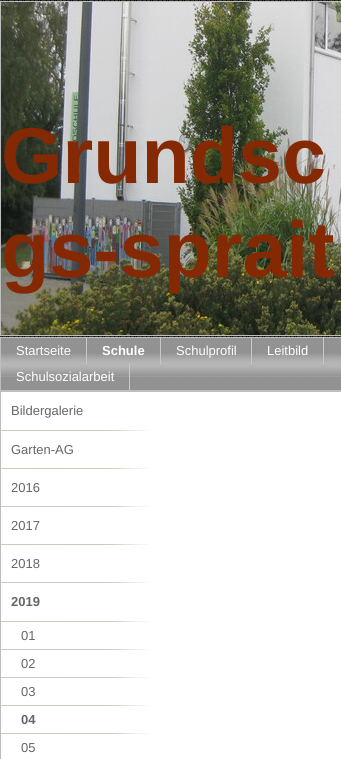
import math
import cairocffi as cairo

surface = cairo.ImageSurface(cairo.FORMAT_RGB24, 341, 759)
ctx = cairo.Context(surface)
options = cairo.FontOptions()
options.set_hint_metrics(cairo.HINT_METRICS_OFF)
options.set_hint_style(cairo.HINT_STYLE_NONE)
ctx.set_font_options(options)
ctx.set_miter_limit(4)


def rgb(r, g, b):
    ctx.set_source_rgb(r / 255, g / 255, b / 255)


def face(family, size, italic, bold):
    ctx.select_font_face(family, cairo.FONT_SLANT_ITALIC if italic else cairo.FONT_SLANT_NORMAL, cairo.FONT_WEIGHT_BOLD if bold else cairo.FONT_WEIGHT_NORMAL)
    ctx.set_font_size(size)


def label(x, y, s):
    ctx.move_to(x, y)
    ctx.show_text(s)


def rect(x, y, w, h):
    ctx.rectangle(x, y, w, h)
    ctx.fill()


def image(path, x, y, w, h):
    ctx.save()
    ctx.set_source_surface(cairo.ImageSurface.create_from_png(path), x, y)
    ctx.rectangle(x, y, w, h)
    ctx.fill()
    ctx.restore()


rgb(53, 53, 47)
ctx.paint()
image('image0.png', 2, 0, 337, 337)
ctx.rectangle(0.5, 1.5, 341, 334)
rgb(190, 190, 190)
ctx.set_line_width(1)
ctx.stroke()
image('image1.png', 1, 2, 340, 333)
face('Liberation Sans', 79, 0, 1)
rgb(133, 40, 4)
label(1, 183, 'Grundsc')
label(1, 277, 'gs-sprait')
rgb(146, 146, 146)
rect(1, 338, 340, 52)
image('image2.png', 1, 354, 340, 23)
ctx.rectangle(0.5, 337.5, 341, 53)
rgb(190, 190, 190)
ctx.stroke()
rgb(200, 200, 200)
rect(86, 338, 1, 26)
face('Liberation Sans', 13, 0, 0)
rgb(255, 255, 255)
label(16, 355, 'Startseite')
rgb(200, 200, 200)
rect(160, 338, 1, 26)
face('Liberation Sans', 13, 0, 1)
rgb(255, 255, 255)
label(102, 355, 'Schule')
rgb(200, 200, 200)
rect(251, 338, 1, 26)
face('Liberation Sans', 13, 0, 0)
rgb(255, 255, 255)
label(176, 355, 'Schulprofil')
rgb(200, 200, 200)
rect(323, 338, 1, 26)
rgb(255, 255, 255)
label(267, 355, 'Leitbild')
rgb(200, 200, 200)
rect(129, 364, 1, 26)
rgb(255, 255, 255)
label(16, 381, 'Schulsozialarbeit')
ctx.rectangle(0.5, 391.5, 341, 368)
ctx.fill_preserve()
rgb(190, 190, 190)
ctx.stroke()
image('image3.png', 1, 430, 148, 1)
rgb(102, 102, 102)
label(11, 415, 'Bildergalerie')
image('image3.png', 1, 468, 148, 1)
label(11, 454, 'Garten-AG')
image('image3.png', 1, 506, 148, 1)
label(11, 492, '2016')
image('image3.png', 1, 544, 148, 1)
label(11, 530, '2017')
image('image3.png', 1, 582, 148, 1)
label(11, 568, '2018')
image('image3.png', 1, 621, 148, 1)
face('Liberation Sans', 13, 0, 1)
label(11, 606, '2019')
image('image3.png', 1, 649, 148, 1)
face('Liberation Sans', 13, 0, 0)
label(21, 640, '01')
image('image3.png', 1, 677, 148, 1)
label(21, 668, '02')
image('image3.png', 1, 705, 148, 1)
label(21, 696, '03')
image('image3.png', 1, 733, 148, 1)
face('Liberation Sans', 13, 0, 1)
label(21, 724, '04')
face('Liberation Sans', 13, 0, 0)
label(21, 752, '05')
surface.write_to_png('render.png')
